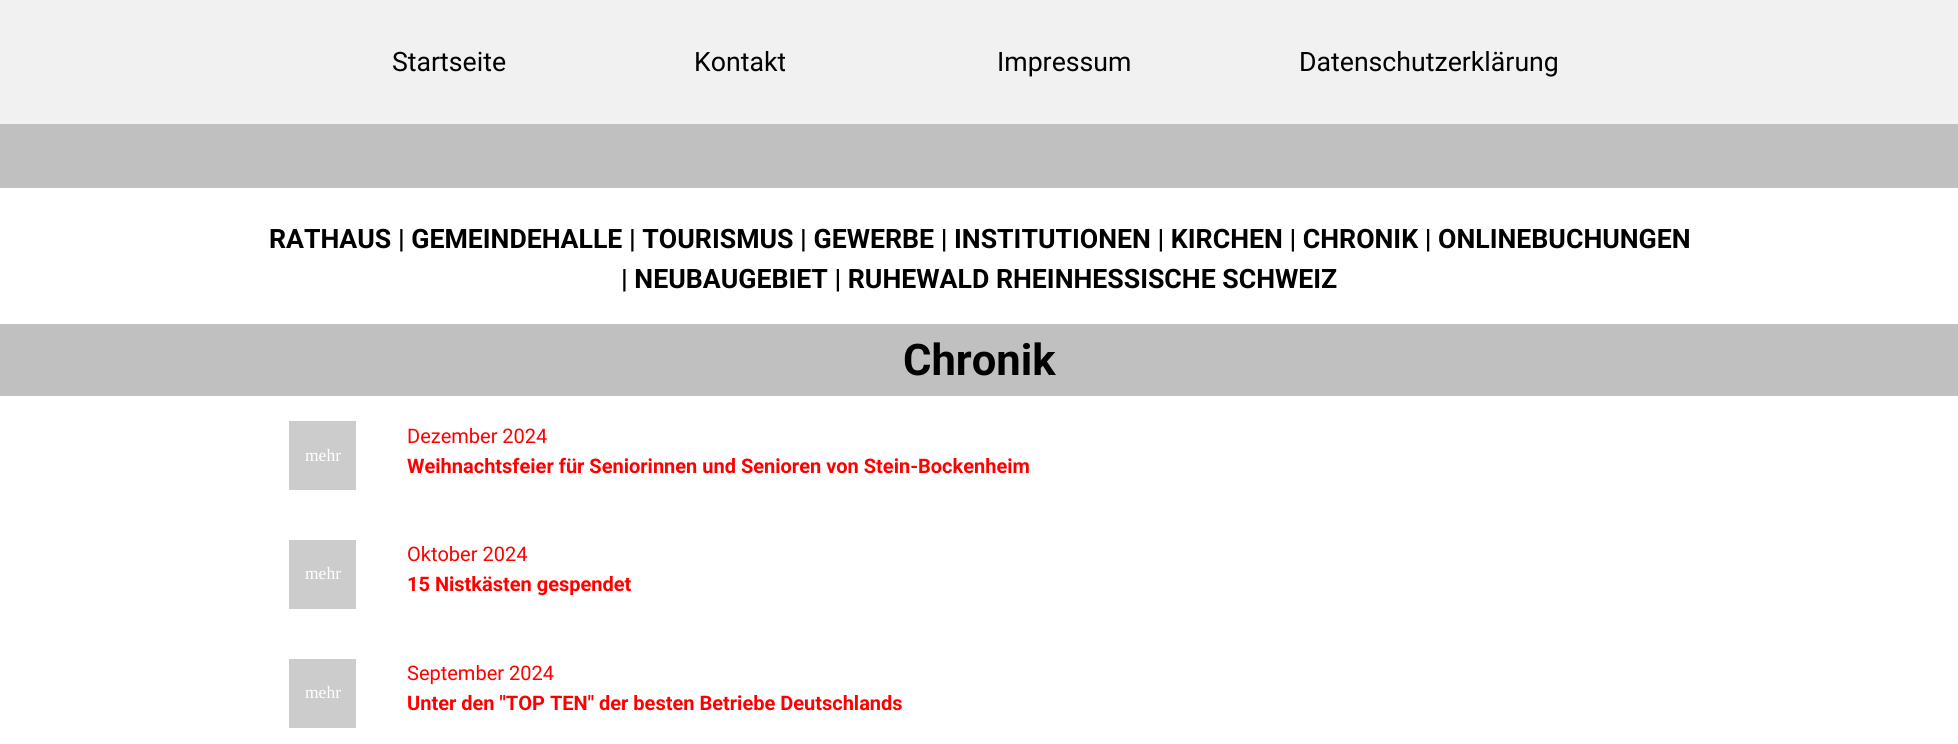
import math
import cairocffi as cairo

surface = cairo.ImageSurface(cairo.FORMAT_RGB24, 1958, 744)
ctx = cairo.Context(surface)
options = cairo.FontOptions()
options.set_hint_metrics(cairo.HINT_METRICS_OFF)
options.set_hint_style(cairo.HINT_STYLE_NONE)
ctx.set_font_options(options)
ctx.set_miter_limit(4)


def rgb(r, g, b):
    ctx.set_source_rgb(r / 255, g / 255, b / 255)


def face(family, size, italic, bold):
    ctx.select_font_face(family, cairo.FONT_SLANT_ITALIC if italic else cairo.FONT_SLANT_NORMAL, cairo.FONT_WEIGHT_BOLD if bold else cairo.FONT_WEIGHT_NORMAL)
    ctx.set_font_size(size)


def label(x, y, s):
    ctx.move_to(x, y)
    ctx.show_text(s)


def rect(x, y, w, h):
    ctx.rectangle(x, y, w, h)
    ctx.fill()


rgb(255, 255, 255)
ctx.paint()
rgb(192, 192, 192)
rect(0, 124, 1958, 64)
rgb(241, 241, 241)
rect(0, 0, 1958, 124)
face('Roboto', 26.67, 0, 0)
rgb(0, 0, 0)
label(392, 71, 'Startseite')
label(694, 71, 'Kontakt')
label(997, 71, 'Impressum')
label(1299, 71, 'Datenschutzerklärung')
face('Roboto', 26.67, 0, 1)
label(269, 248, 'RATHAUS | GEMEINDEHALLE | TOURISMUS | GEWERBE | INSTITUTIONEN | KIRCHEN | CHRONIK | ONLINEBUCHUNGEN')
label(621, 288, '| NEUBAUGEBIET | RUHEWALD RHEINHESSISCHE SCHWEIZ')
rgb(192, 192, 192)
rect(0, 324, 1958, 72)
face('Roboto', 43.5, 0, 1)
rgb(0, 0, 0)
label(903, 375, 'Chronik')
rgb(204, 204, 204)
rect(289, 421, 67, 69)
face('Liberation Serif', 17.5, 0, 0)
rgb(255, 255, 255)
label(305, 461, 'mehr')
face('Roboto', 20, 0, 0)
rgb(255, 0, 0)
label(407, 443, 'Dezember 2024')
face('Roboto', 20, 0, 1)
label(407, 473, 'Weihnachtsfeier für Seniorinnen und Senioren von Stein-Bockenheim')
rgb(204, 204, 204)
rect(289, 540, 67, 69)
face('Liberation Serif', 17.5, 0, 0)
rgb(255, 255, 255)
label(305, 579, 'mehr')
face('Roboto', 20, 0, 0)
rgb(255, 0, 0)
label(407, 561, 'Oktober 2024')
face('Roboto', 20, 0, 1)
label(407, 591, '15 Nistkästen gespendet')
rgb(204, 204, 204)
rect(289, 659, 67, 69)
face('Liberation Serif', 17.5, 0, 0)
rgb(255, 255, 255)
label(305, 698, 'mehr')
face('Roboto', 20, 0, 0)
rgb(255, 0, 0)
label(407, 680, 'September 2024')
face('Roboto', 20, 0, 1)
label(407, 710, 'Unter den "TOP TEN" der besten Betriebe Deutschlands')
surface.write_to_png('render.png')
